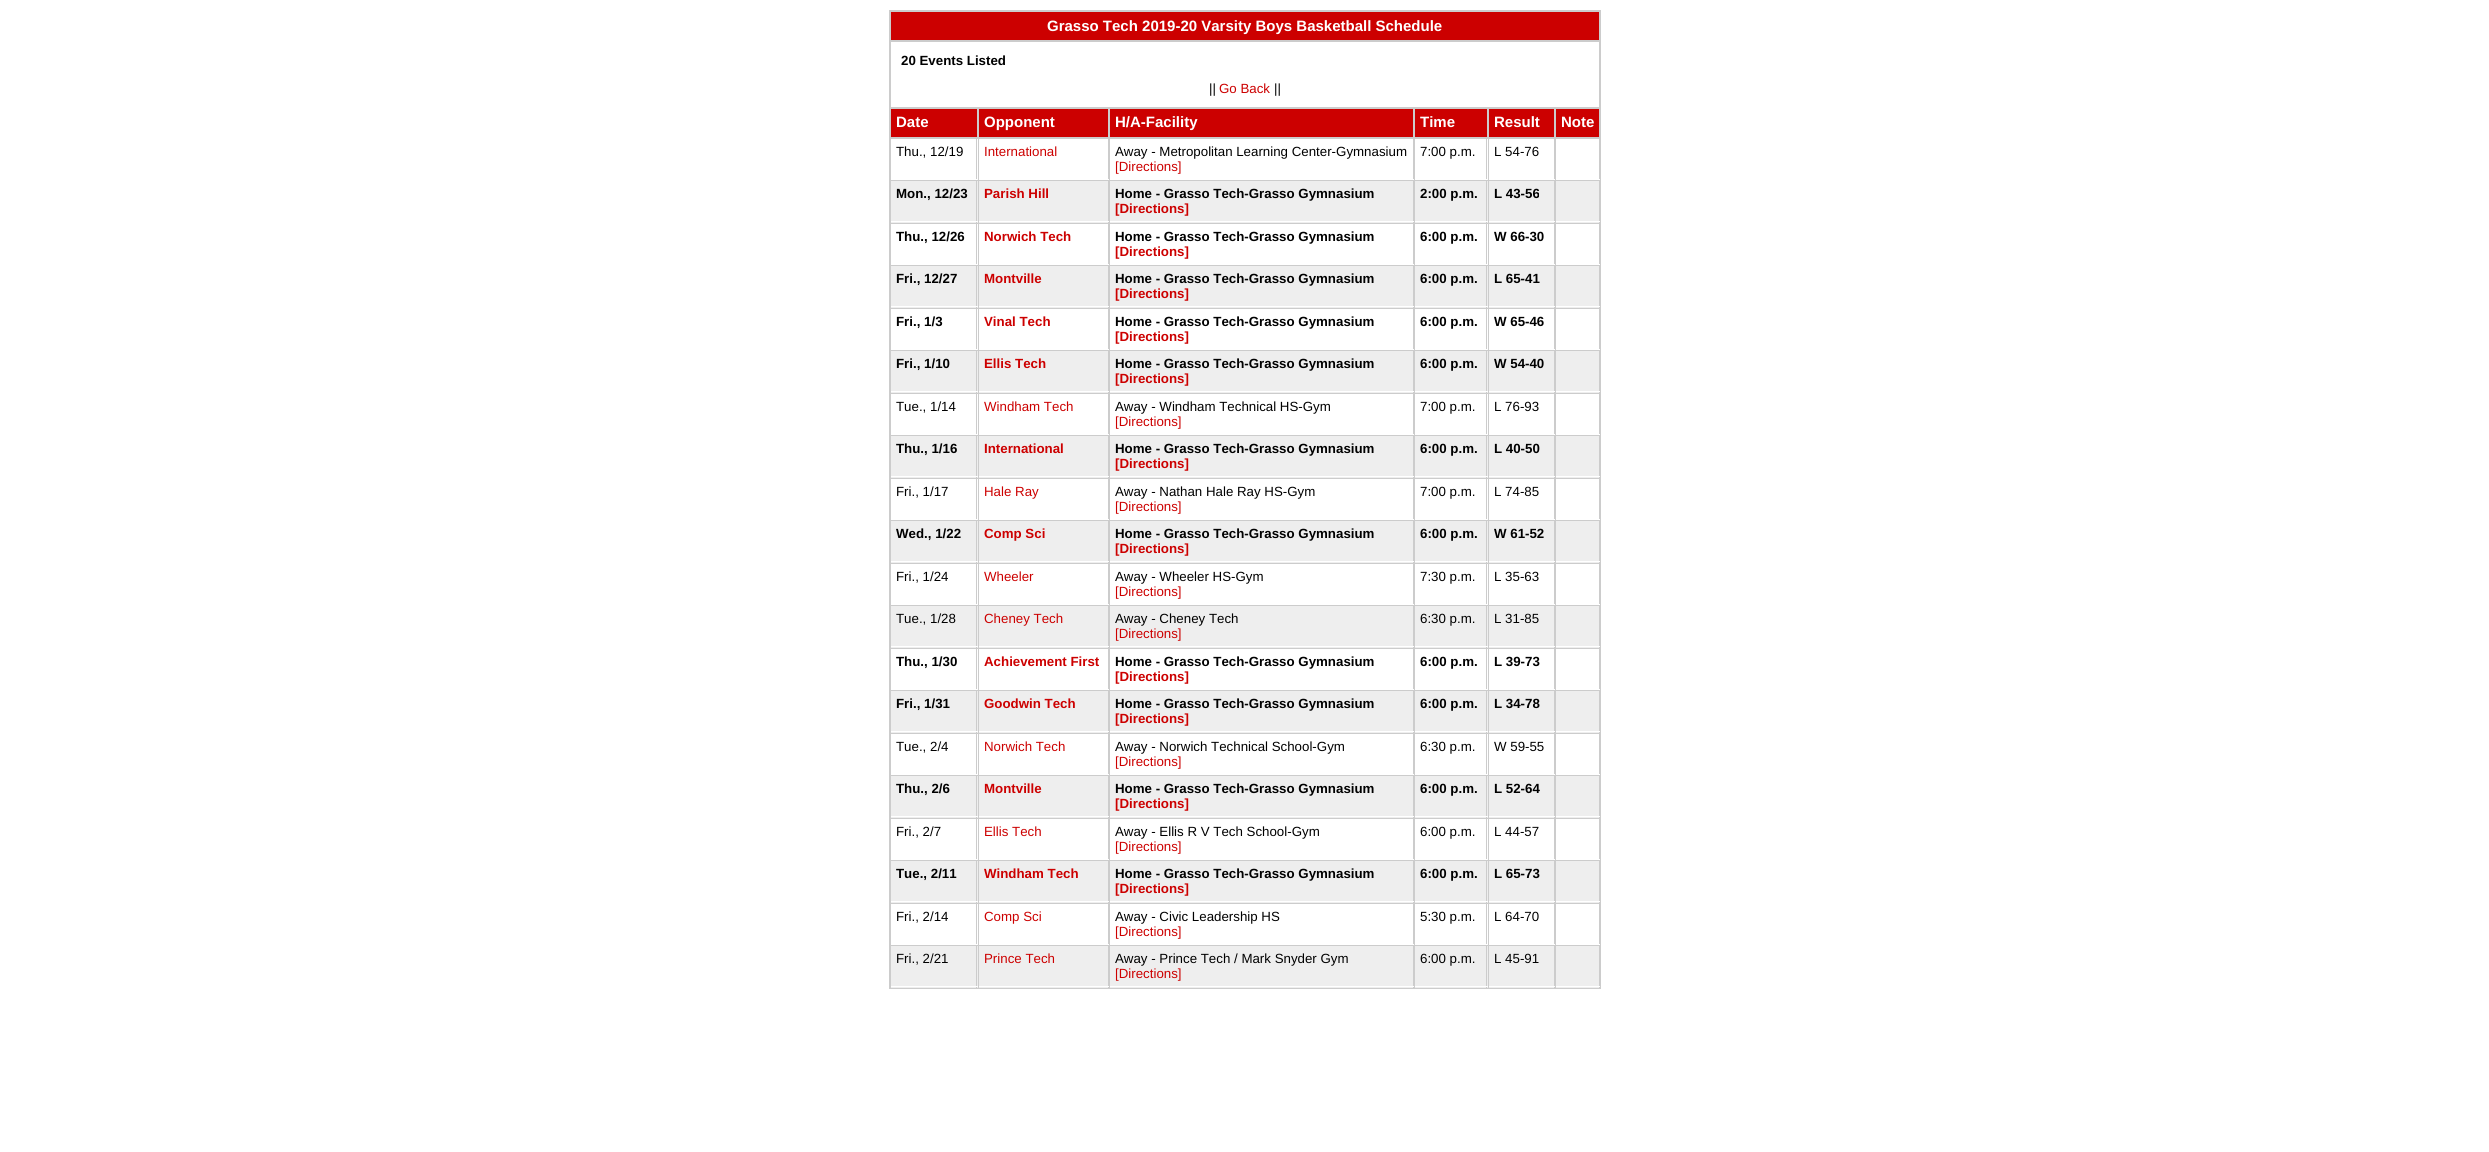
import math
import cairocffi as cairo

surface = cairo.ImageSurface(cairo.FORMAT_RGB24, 2489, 1152)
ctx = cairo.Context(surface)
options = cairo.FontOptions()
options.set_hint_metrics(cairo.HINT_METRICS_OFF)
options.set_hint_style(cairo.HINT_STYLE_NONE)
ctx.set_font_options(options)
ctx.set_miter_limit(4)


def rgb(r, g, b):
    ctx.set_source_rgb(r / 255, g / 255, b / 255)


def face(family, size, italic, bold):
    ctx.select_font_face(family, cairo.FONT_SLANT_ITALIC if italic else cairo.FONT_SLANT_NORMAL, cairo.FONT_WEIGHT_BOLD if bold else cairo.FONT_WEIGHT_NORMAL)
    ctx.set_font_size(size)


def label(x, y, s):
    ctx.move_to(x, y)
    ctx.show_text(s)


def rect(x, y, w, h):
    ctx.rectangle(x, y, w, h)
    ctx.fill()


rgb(255, 255, 255)
ctx.paint()
rgb(204, 204, 204)
rect(889, 10, 712, 979)
rgb(204, 0, 0)
rect(891, 12, 708, 28)
face('Liberation Sans', 15, 0, 1)
rgb(255, 255, 255)
label(1047, 31, 'Grasso Tech 2019-20 Varsity Boys Basketball Schedule')
rect(891, 42, 708, 65)
face('Liberation Sans', 13.3, 0, 1)
rgb(0, 0, 0)
label(901, 65, '20 Events Listed')
face('Liberation Sans', 13.3, 0, 0)
label(1209, 93, '||')
rgb(204, 0, 0)
label(1219, 93, 'Go Back')
rgb(0, 0, 0)
label(1274, 93, '||')
rgb(204, 0, 0)
rect(891, 109, 86, 28)
face('Liberation Sans', 15, 0, 1)
rgb(255, 255, 255)
label(896, 127, 'Date')
rgb(204, 0, 0)
rect(979, 109, 129, 28)
rgb(255, 255, 255)
label(984, 127, 'Opponent')
rgb(204, 0, 0)
rect(1110, 109, 303, 28)
rgb(255, 255, 255)
label(1115, 127, 'H/A-Facility')
rgb(204, 0, 0)
rect(1415, 109, 72, 28)
rgb(255, 255, 255)
label(1420, 127, 'Time')
rgb(204, 0, 0)
rect(1489, 109, 65, 28)
rgb(255, 255, 255)
label(1494, 127, 'Result')
rgb(204, 0, 0)
rect(1556, 109, 43, 28)
rgb(255, 255, 255)
label(1561, 127, 'Note')
rect(891, 139, 708, 40)
rgb(204, 204, 204)
rect(976, 138, 1, 42)
rgb(255, 255, 255)
rect(890, 179, 88, 1)
rgb(204, 204, 204)
rect(890, 179, 1, 1)
face('Liberation Sans', 13.3, 0, 0)
rgb(0, 0, 0)
label(896, 156, 'Thu., 12/19')
rgb(204, 204, 204)
rect(1108, 138, 1, 42)
rgb(255, 255, 255)
rect(978, 179, 131, 1)
rgb(204, 204, 204)
rect(978, 138, 1, 42)
rgb(204, 0, 0)
label(984, 156, 'International')
rgb(204, 204, 204)
rect(1413, 138, 1, 42)
rgb(255, 255, 255)
rect(1109, 179, 305, 1)
rgb(204, 204, 204)
rect(1109, 138, 1, 42)
rgb(0, 0, 0)
label(1115, 156, 'Away - Metropolitan Learning Center-Gymnasium')
rgb(204, 0, 0)
label(1115, 171, '[Directions]')
rgb(204, 204, 204)
rect(1486, 138, 1, 42)
rgb(255, 255, 255)
rect(1414, 179, 74, 1)
rgb(204, 204, 204)
rect(1414, 138, 1, 42)
rgb(0, 0, 0)
label(1420, 156, '7:00 p.m.')
rgb(204, 204, 204)
rect(1554, 138, 1, 42)
rgb(255, 255, 255)
rect(1488, 179, 112, 1)
rgb(204, 204, 204)
rect(1488, 138, 1, 42)
rgb(0, 0, 0)
label(1494, 156, 'L 54-76')
rgb(204, 204, 204)
rect(1555, 138, 1, 42)
rgb(238, 238, 238)
rect(891, 181, 708, 42)
rgb(204, 204, 204)
rect(976, 180, 1, 43)
rgb(255, 255, 255)
rect(890, 221, 88, 1)
rgb(204, 204, 204)
rect(890, 221, 1, 2)
face('Liberation Sans', 13.3, 0, 1)
rgb(0, 0, 0)
label(896, 198, 'Mon., 12/23')
rgb(204, 204, 204)
rect(1108, 180, 1, 43)
rgb(255, 255, 255)
rect(978, 221, 131, 1)
rgb(204, 204, 204)
rect(978, 180, 1, 43)
rgb(204, 0, 0)
label(984, 198, 'Parish Hill')
rgb(204, 204, 204)
rect(1413, 180, 1, 43)
rgb(255, 255, 255)
rect(1109, 221, 305, 1)
rgb(204, 204, 204)
rect(1109, 180, 1, 43)
rgb(0, 0, 0)
label(1115, 198, 'Home - Grasso Tech-Grasso Gymnasium')
rgb(204, 0, 0)
label(1115, 213, '[Directions]')
rgb(204, 204, 204)
rect(1486, 180, 1, 43)
rgb(255, 255, 255)
rect(1414, 221, 74, 1)
rgb(204, 204, 204)
rect(1414, 180, 1, 43)
rgb(0, 0, 0)
label(1420, 198, '2:00 p.m.')
rgb(204, 204, 204)
rect(1554, 180, 1, 43)
rgb(255, 255, 255)
rect(1488, 221, 112, 1)
rgb(204, 204, 204)
rect(1488, 180, 1, 43)
rgb(0, 0, 0)
label(1494, 198, 'L 43-56')
rgb(204, 204, 204)
rect(1555, 180, 1, 43)
rgb(255, 255, 255)
rect(891, 224, 708, 40)
rgb(204, 204, 204)
rect(976, 223, 1, 42)
rgb(255, 255, 255)
rect(890, 264, 88, 1)
rgb(204, 204, 204)
rect(890, 264, 1, 1)
rgb(0, 0, 0)
label(896, 241, 'Thu., 12/26')
rgb(204, 204, 204)
rect(1108, 223, 1, 42)
rgb(255, 255, 255)
rect(978, 264, 131, 1)
rgb(204, 204, 204)
rect(978, 223, 1, 42)
rgb(204, 0, 0)
label(984, 241, 'Norwich Tech')
rgb(204, 204, 204)
rect(1413, 223, 1, 42)
rgb(255, 255, 255)
rect(1109, 264, 305, 1)
rgb(204, 204, 204)
rect(1109, 223, 1, 42)
rgb(0, 0, 0)
label(1115, 241, 'Home - Grasso Tech-Grasso Gymnasium')
rgb(204, 0, 0)
label(1115, 256, '[Directions]')
rgb(204, 204, 204)
rect(1486, 223, 1, 42)
rgb(255, 255, 255)
rect(1414, 264, 74, 1)
rgb(204, 204, 204)
rect(1414, 223, 1, 42)
rgb(0, 0, 0)
label(1420, 241, '6:00 p.m.')
rgb(204, 204, 204)
rect(1554, 223, 1, 42)
rgb(255, 255, 255)
rect(1488, 264, 112, 1)
rgb(204, 204, 204)
rect(1488, 223, 1, 42)
rgb(0, 0, 0)
label(1494, 241, 'W 66-30')
rgb(204, 204, 204)
rect(1555, 223, 1, 42)
rgb(238, 238, 238)
rect(891, 266, 708, 42)
rgb(204, 204, 204)
rect(976, 265, 1, 43)
rgb(255, 255, 255)
rect(890, 306, 88, 1)
rgb(204, 204, 204)
rect(890, 306, 1, 2)
rgb(0, 0, 0)
label(896, 283, 'Fri., 12/27')
rgb(204, 204, 204)
rect(1108, 265, 1, 43)
rgb(255, 255, 255)
rect(978, 306, 131, 1)
rgb(204, 204, 204)
rect(978, 265, 1, 43)
rgb(204, 0, 0)
label(984, 283, 'Montville')
rgb(204, 204, 204)
rect(1413, 265, 1, 43)
rgb(255, 255, 255)
rect(1109, 306, 305, 1)
rgb(204, 204, 204)
rect(1109, 265, 1, 43)
rgb(0, 0, 0)
label(1115, 283, 'Home - Grasso Tech-Grasso Gymnasium')
rgb(204, 0, 0)
label(1115, 298, '[Directions]')
rgb(204, 204, 204)
rect(1486, 265, 1, 43)
rgb(255, 255, 255)
rect(1414, 306, 74, 1)
rgb(204, 204, 204)
rect(1414, 265, 1, 43)
rgb(0, 0, 0)
label(1420, 283, '6:00 p.m.')
rgb(204, 204, 204)
rect(1554, 265, 1, 43)
rgb(255, 255, 255)
rect(1488, 306, 112, 1)
rgb(204, 204, 204)
rect(1488, 265, 1, 43)
rgb(0, 0, 0)
label(1494, 283, 'L 65-41')
rgb(204, 204, 204)
rect(1555, 265, 1, 43)
rgb(255, 255, 255)
rect(891, 309, 708, 40)
rgb(204, 204, 204)
rect(976, 308, 1, 42)
rgb(255, 255, 255)
rect(890, 349, 88, 1)
rgb(204, 204, 204)
rect(890, 349, 1, 1)
rgb(0, 0, 0)
label(896, 326, 'Fri., 1/3')
rgb(204, 204, 204)
rect(1108, 308, 1, 42)
rgb(255, 255, 255)
rect(978, 349, 131, 1)
rgb(204, 204, 204)
rect(978, 308, 1, 42)
rgb(204, 0, 0)
label(984, 326, 'Vinal Tech')
rgb(204, 204, 204)
rect(1413, 308, 1, 42)
rgb(255, 255, 255)
rect(1109, 349, 305, 1)
rgb(204, 204, 204)
rect(1109, 308, 1, 42)
rgb(0, 0, 0)
label(1115, 326, 'Home - Grasso Tech-Grasso Gymnasium')
rgb(204, 0, 0)
label(1115, 341, '[Directions]')
rgb(204, 204, 204)
rect(1486, 308, 1, 42)
rgb(255, 255, 255)
rect(1414, 349, 74, 1)
rgb(204, 204, 204)
rect(1414, 308, 1, 42)
rgb(0, 0, 0)
label(1420, 326, '6:00 p.m.')
rgb(204, 204, 204)
rect(1554, 308, 1, 42)
rgb(255, 255, 255)
rect(1488, 349, 112, 1)
rgb(204, 204, 204)
rect(1488, 308, 1, 42)
rgb(0, 0, 0)
label(1494, 326, 'W 65-46')
rgb(204, 204, 204)
rect(1555, 308, 1, 42)
rgb(238, 238, 238)
rect(891, 351, 708, 42)
rgb(204, 204, 204)
rect(976, 350, 1, 43)
rgb(255, 255, 255)
rect(890, 391, 88, 1)
rgb(204, 204, 204)
rect(890, 391, 1, 2)
rgb(0, 0, 0)
label(896, 368, 'Fri., 1/10')
rgb(204, 204, 204)
rect(1108, 350, 1, 43)
rgb(255, 255, 255)
rect(978, 391, 131, 1)
rgb(204, 204, 204)
rect(978, 350, 1, 43)
rgb(204, 0, 0)
label(984, 368, 'Ellis Tech')
rgb(204, 204, 204)
rect(1413, 350, 1, 43)
rgb(255, 255, 255)
rect(1109, 391, 305, 1)
rgb(204, 204, 204)
rect(1109, 350, 1, 43)
rgb(0, 0, 0)
label(1115, 368, 'Home - Grasso Tech-Grasso Gymnasium')
rgb(204, 0, 0)
label(1115, 383, '[Directions]')
rgb(204, 204, 204)
rect(1486, 350, 1, 43)
rgb(255, 255, 255)
rect(1414, 391, 74, 1)
rgb(204, 204, 204)
rect(1414, 350, 1, 43)
rgb(0, 0, 0)
label(1420, 368, '6:00 p.m.')
rgb(204, 204, 204)
rect(1554, 350, 1, 43)
rgb(255, 255, 255)
rect(1488, 391, 112, 1)
rgb(204, 204, 204)
rect(1488, 350, 1, 43)
rgb(0, 0, 0)
label(1494, 368, 'W 54-40')
rgb(204, 204, 204)
rect(1555, 350, 1, 43)
rgb(255, 255, 255)
rect(891, 394, 708, 40)
rgb(204, 204, 204)
rect(976, 393, 1, 42)
rgb(255, 255, 255)
rect(890, 434, 88, 1)
rgb(204, 204, 204)
rect(890, 434, 1, 1)
face('Liberation Sans', 13.3, 0, 0)
rgb(0, 0, 0)
label(896, 411, 'Tue., 1/14')
rgb(204, 204, 204)
rect(1108, 393, 1, 42)
rgb(255, 255, 255)
rect(978, 434, 131, 1)
rgb(204, 204, 204)
rect(978, 393, 1, 42)
rgb(204, 0, 0)
label(984, 411, 'Windham Tech')
rgb(204, 204, 204)
rect(1413, 393, 1, 42)
rgb(255, 255, 255)
rect(1109, 434, 305, 1)
rgb(204, 204, 204)
rect(1109, 393, 1, 42)
rgb(0, 0, 0)
label(1115, 411, 'Away - Windham Technical HS-Gym')
rgb(204, 0, 0)
label(1115, 426, '[Directions]')
rgb(204, 204, 204)
rect(1486, 393, 1, 42)
rgb(255, 255, 255)
rect(1414, 434, 74, 1)
rgb(204, 204, 204)
rect(1414, 393, 1, 42)
rgb(0, 0, 0)
label(1420, 411, '7:00 p.m.')
rgb(204, 204, 204)
rect(1554, 393, 1, 42)
rgb(255, 255, 255)
rect(1488, 434, 112, 1)
rgb(204, 204, 204)
rect(1488, 393, 1, 42)
rgb(0, 0, 0)
label(1494, 411, 'L 76-93')
rgb(204, 204, 204)
rect(1555, 393, 1, 42)
rgb(238, 238, 238)
rect(891, 436, 708, 42)
rgb(204, 204, 204)
rect(976, 435, 1, 43)
rgb(255, 255, 255)
rect(890, 476, 88, 1)
rgb(204, 204, 204)
rect(890, 476, 1, 2)
face('Liberation Sans', 13.3, 0, 1)
rgb(0, 0, 0)
label(896, 453, 'Thu., 1/16')
rgb(204, 204, 204)
rect(1108, 435, 1, 43)
rgb(255, 255, 255)
rect(978, 476, 131, 1)
rgb(204, 204, 204)
rect(978, 435, 1, 43)
rgb(204, 0, 0)
label(984, 453, 'International')
rgb(204, 204, 204)
rect(1413, 435, 1, 43)
rgb(255, 255, 255)
rect(1109, 476, 305, 1)
rgb(204, 204, 204)
rect(1109, 435, 1, 43)
rgb(0, 0, 0)
label(1115, 453, 'Home - Grasso Tech-Grasso Gymnasium')
rgb(204, 0, 0)
label(1115, 468, '[Directions]')
rgb(204, 204, 204)
rect(1486, 435, 1, 43)
rgb(255, 255, 255)
rect(1414, 476, 74, 1)
rgb(204, 204, 204)
rect(1414, 435, 1, 43)
rgb(0, 0, 0)
label(1420, 453, '6:00 p.m.')
rgb(204, 204, 204)
rect(1554, 435, 1, 43)
rgb(255, 255, 255)
rect(1488, 476, 112, 1)
rgb(204, 204, 204)
rect(1488, 435, 1, 43)
rgb(0, 0, 0)
label(1494, 453, 'L 40-50')
rgb(204, 204, 204)
rect(1555, 435, 1, 43)
rgb(255, 255, 255)
rect(891, 479, 708, 40)
rgb(204, 204, 204)
rect(976, 478, 1, 42)
rgb(255, 255, 255)
rect(890, 519, 88, 1)
rgb(204, 204, 204)
rect(890, 519, 1, 1)
face('Liberation Sans', 13.3, 0, 0)
rgb(0, 0, 0)
label(896, 496, 'Fri., 1/17')
rgb(204, 204, 204)
rect(1108, 478, 1, 42)
rgb(255, 255, 255)
rect(978, 519, 131, 1)
rgb(204, 204, 204)
rect(978, 478, 1, 42)
rgb(204, 0, 0)
label(984, 496, 'Hale Ray')
rgb(204, 204, 204)
rect(1413, 478, 1, 42)
rgb(255, 255, 255)
rect(1109, 519, 305, 1)
rgb(204, 204, 204)
rect(1109, 478, 1, 42)
rgb(0, 0, 0)
label(1115, 496, 'Away - Nathan Hale Ray HS-Gym')
rgb(204, 0, 0)
label(1115, 511, '[Directions]')
rgb(204, 204, 204)
rect(1486, 478, 1, 42)
rgb(255, 255, 255)
rect(1414, 519, 74, 1)
rgb(204, 204, 204)
rect(1414, 478, 1, 42)
rgb(0, 0, 0)
label(1420, 496, '7:00 p.m.')
rgb(204, 204, 204)
rect(1554, 478, 1, 42)
rgb(255, 255, 255)
rect(1488, 519, 112, 1)
rgb(204, 204, 204)
rect(1488, 478, 1, 42)
rgb(0, 0, 0)
label(1494, 496, 'L 74-85')
rgb(204, 204, 204)
rect(1555, 478, 1, 42)
rgb(238, 238, 238)
rect(891, 521, 708, 42)
rgb(204, 204, 204)
rect(976, 520, 1, 43)
rgb(255, 255, 255)
rect(890, 561, 88, 1)
rgb(204, 204, 204)
rect(890, 561, 1, 2)
face('Liberation Sans', 13.3, 0, 1)
rgb(0, 0, 0)
label(896, 538, 'Wed., 1/22')
rgb(204, 204, 204)
rect(1108, 520, 1, 43)
rgb(255, 255, 255)
rect(978, 561, 131, 1)
rgb(204, 204, 204)
rect(978, 520, 1, 43)
rgb(204, 0, 0)
label(984, 538, 'Comp Sci')
rgb(204, 204, 204)
rect(1413, 520, 1, 43)
rgb(255, 255, 255)
rect(1109, 561, 305, 1)
rgb(204, 204, 204)
rect(1109, 520, 1, 43)
rgb(0, 0, 0)
label(1115, 538, 'Home - Grasso Tech-Grasso Gymnasium')
rgb(204, 0, 0)
label(1115, 553, '[Directions]')
rgb(204, 204, 204)
rect(1486, 520, 1, 43)
rgb(255, 255, 255)
rect(1414, 561, 74, 1)
rgb(204, 204, 204)
rect(1414, 520, 1, 43)
rgb(0, 0, 0)
label(1420, 538, '6:00 p.m.')
rgb(204, 204, 204)
rect(1554, 520, 1, 43)
rgb(255, 255, 255)
rect(1488, 561, 112, 1)
rgb(204, 204, 204)
rect(1488, 520, 1, 43)
rgb(0, 0, 0)
label(1494, 538, 'W 61-52')
rgb(204, 204, 204)
rect(1555, 520, 1, 43)
rgb(255, 255, 255)
rect(891, 564, 708, 40)
rgb(204, 204, 204)
rect(976, 563, 1, 42)
rgb(255, 255, 255)
rect(890, 604, 88, 1)
rgb(204, 204, 204)
rect(890, 604, 1, 1)
face('Liberation Sans', 13.3, 0, 0)
rgb(0, 0, 0)
label(896, 581, 'Fri., 1/24')
rgb(204, 204, 204)
rect(1108, 563, 1, 42)
rgb(255, 255, 255)
rect(978, 604, 131, 1)
rgb(204, 204, 204)
rect(978, 563, 1, 42)
rgb(204, 0, 0)
label(984, 581, 'Wheeler')
rgb(204, 204, 204)
rect(1413, 563, 1, 42)
rgb(255, 255, 255)
rect(1109, 604, 305, 1)
rgb(204, 204, 204)
rect(1109, 563, 1, 42)
rgb(0, 0, 0)
label(1115, 581, 'Away - Wheeler HS-Gym')
rgb(204, 0, 0)
label(1115, 596, '[Directions]')
rgb(204, 204, 204)
rect(1486, 563, 1, 42)
rgb(255, 255, 255)
rect(1414, 604, 74, 1)
rgb(204, 204, 204)
rect(1414, 563, 1, 42)
rgb(0, 0, 0)
label(1420, 581, '7:30 p.m.')
rgb(204, 204, 204)
rect(1554, 563, 1, 42)
rgb(255, 255, 255)
rect(1488, 604, 112, 1)
rgb(204, 204, 204)
rect(1488, 563, 1, 42)
rgb(0, 0, 0)
label(1494, 581, 'L 35-63')
rgb(204, 204, 204)
rect(1555, 563, 1, 42)
rgb(238, 238, 238)
rect(891, 606, 708, 42)
rgb(204, 204, 204)
rect(976, 605, 1, 43)
rgb(255, 255, 255)
rect(890, 646, 88, 1)
rgb(204, 204, 204)
rect(890, 646, 1, 2)
rgb(0, 0, 0)
label(896, 623, 'Tue., 1/28')
rgb(204, 204, 204)
rect(1108, 605, 1, 43)
rgb(255, 255, 255)
rect(978, 646, 131, 1)
rgb(204, 204, 204)
rect(978, 605, 1, 43)
rgb(204, 0, 0)
label(984, 623, 'Cheney Tech')
rgb(204, 204, 204)
rect(1413, 605, 1, 43)
rgb(255, 255, 255)
rect(1109, 646, 305, 1)
rgb(204, 204, 204)
rect(1109, 605, 1, 43)
rgb(0, 0, 0)
label(1115, 623, 'Away - Cheney Tech')
rgb(204, 0, 0)
label(1115, 638, '[Directions]')
rgb(204, 204, 204)
rect(1486, 605, 1, 43)
rgb(255, 255, 255)
rect(1414, 646, 74, 1)
rgb(204, 204, 204)
rect(1414, 605, 1, 43)
rgb(0, 0, 0)
label(1420, 623, '6:30 p.m.')
rgb(204, 204, 204)
rect(1554, 605, 1, 43)
rgb(255, 255, 255)
rect(1488, 646, 112, 1)
rgb(204, 204, 204)
rect(1488, 605, 1, 43)
rgb(0, 0, 0)
label(1494, 623, 'L 31-85')
rgb(204, 204, 204)
rect(1555, 605, 1, 43)
rgb(255, 255, 255)
rect(891, 649, 708, 40)
rgb(204, 204, 204)
rect(976, 648, 1, 42)
rgb(255, 255, 255)
rect(890, 689, 88, 1)
rgb(204, 204, 204)
rect(890, 689, 1, 1)
face('Liberation Sans', 13.3, 0, 1)
rgb(0, 0, 0)
label(896, 666, 'Thu., 1/30')
rgb(204, 204, 204)
rect(1108, 648, 1, 42)
rgb(255, 255, 255)
rect(978, 689, 131, 1)
rgb(204, 204, 204)
rect(978, 648, 1, 42)
rgb(204, 0, 0)
label(984, 666, 'Achievement First')
rgb(204, 204, 204)
rect(1413, 648, 1, 42)
rgb(255, 255, 255)
rect(1109, 689, 305, 1)
rgb(204, 204, 204)
rect(1109, 648, 1, 42)
rgb(0, 0, 0)
label(1115, 666, 'Home - Grasso Tech-Grasso Gymnasium')
rgb(204, 0, 0)
label(1115, 681, '[Directions]')
rgb(204, 204, 204)
rect(1486, 648, 1, 42)
rgb(255, 255, 255)
rect(1414, 689, 74, 1)
rgb(204, 204, 204)
rect(1414, 648, 1, 42)
rgb(0, 0, 0)
label(1420, 666, '6:00 p.m.')
rgb(204, 204, 204)
rect(1554, 648, 1, 42)
rgb(255, 255, 255)
rect(1488, 689, 112, 1)
rgb(204, 204, 204)
rect(1488, 648, 1, 42)
rgb(0, 0, 0)
label(1494, 666, 'L 39-73')
rgb(204, 204, 204)
rect(1555, 648, 1, 42)
rgb(238, 238, 238)
rect(891, 691, 708, 42)
rgb(204, 204, 204)
rect(976, 690, 1, 43)
rgb(255, 255, 255)
rect(890, 731, 88, 1)
rgb(204, 204, 204)
rect(890, 731, 1, 2)
rgb(0, 0, 0)
label(896, 708, 'Fri., 1/31')
rgb(204, 204, 204)
rect(1108, 690, 1, 43)
rgb(255, 255, 255)
rect(978, 731, 131, 1)
rgb(204, 204, 204)
rect(978, 690, 1, 43)
rgb(204, 0, 0)
label(984, 708, 'Goodwin Tech')
rgb(204, 204, 204)
rect(1413, 690, 1, 43)
rgb(255, 255, 255)
rect(1109, 731, 305, 1)
rgb(204, 204, 204)
rect(1109, 690, 1, 43)
rgb(0, 0, 0)
label(1115, 708, 'Home - Grasso Tech-Grasso Gymnasium')
rgb(204, 0, 0)
label(1115, 723, '[Directions]')
rgb(204, 204, 204)
rect(1486, 690, 1, 43)
rgb(255, 255, 255)
rect(1414, 731, 74, 1)
rgb(204, 204, 204)
rect(1414, 690, 1, 43)
rgb(0, 0, 0)
label(1420, 708, '6:00 p.m.')
rgb(204, 204, 204)
rect(1554, 690, 1, 43)
rgb(255, 255, 255)
rect(1488, 731, 112, 1)
rgb(204, 204, 204)
rect(1488, 690, 1, 43)
rgb(0, 0, 0)
label(1494, 708, 'L 34-78')
rgb(204, 204, 204)
rect(1555, 690, 1, 43)
rgb(255, 255, 255)
rect(891, 734, 708, 40)
rgb(204, 204, 204)
rect(976, 733, 1, 42)
rgb(255, 255, 255)
rect(890, 774, 88, 1)
rgb(204, 204, 204)
rect(890, 774, 1, 1)
face('Liberation Sans', 13.3, 0, 0)
rgb(0, 0, 0)
label(896, 751, 'Tue., 2/4')
rgb(204, 204, 204)
rect(1108, 733, 1, 42)
rgb(255, 255, 255)
rect(978, 774, 131, 1)
rgb(204, 204, 204)
rect(978, 733, 1, 42)
rgb(204, 0, 0)
label(984, 751, 'Norwich Tech')
rgb(204, 204, 204)
rect(1413, 733, 1, 42)
rgb(255, 255, 255)
rect(1109, 774, 305, 1)
rgb(204, 204, 204)
rect(1109, 733, 1, 42)
rgb(0, 0, 0)
label(1115, 751, 'Away - Norwich Technical School-Gym')
rgb(204, 0, 0)
label(1115, 766, '[Directions]')
rgb(204, 204, 204)
rect(1486, 733, 1, 42)
rgb(255, 255, 255)
rect(1414, 774, 74, 1)
rgb(204, 204, 204)
rect(1414, 733, 1, 42)
rgb(0, 0, 0)
label(1420, 751, '6:30 p.m.')
rgb(204, 204, 204)
rect(1554, 733, 1, 42)
rgb(255, 255, 255)
rect(1488, 774, 112, 1)
rgb(204, 204, 204)
rect(1488, 733, 1, 42)
rgb(0, 0, 0)
label(1494, 751, 'W 59-55')
rgb(204, 204, 204)
rect(1555, 733, 1, 42)
rgb(238, 238, 238)
rect(891, 776, 708, 42)
rgb(204, 204, 204)
rect(976, 775, 1, 43)
rgb(255, 255, 255)
rect(890, 816, 88, 1)
rgb(204, 204, 204)
rect(890, 816, 1, 2)
face('Liberation Sans', 13.3, 0, 1)
rgb(0, 0, 0)
label(896, 793, 'Thu., 2/6')
rgb(204, 204, 204)
rect(1108, 775, 1, 43)
rgb(255, 255, 255)
rect(978, 816, 131, 1)
rgb(204, 204, 204)
rect(978, 775, 1, 43)
rgb(204, 0, 0)
label(984, 793, 'Montville')
rgb(204, 204, 204)
rect(1413, 775, 1, 43)
rgb(255, 255, 255)
rect(1109, 816, 305, 1)
rgb(204, 204, 204)
rect(1109, 775, 1, 43)
rgb(0, 0, 0)
label(1115, 793, 'Home - Grasso Tech-Grasso Gymnasium')
rgb(204, 0, 0)
label(1115, 808, '[Directions]')
rgb(204, 204, 204)
rect(1486, 775, 1, 43)
rgb(255, 255, 255)
rect(1414, 816, 74, 1)
rgb(204, 204, 204)
rect(1414, 775, 1, 43)
rgb(0, 0, 0)
label(1420, 793, '6:00 p.m.')
rgb(204, 204, 204)
rect(1554, 775, 1, 43)
rgb(255, 255, 255)
rect(1488, 816, 112, 1)
rgb(204, 204, 204)
rect(1488, 775, 1, 43)
rgb(0, 0, 0)
label(1494, 793, 'L 52-64')
rgb(204, 204, 204)
rect(1555, 775, 1, 43)
rgb(255, 255, 255)
rect(891, 819, 708, 40)
rgb(204, 204, 204)
rect(976, 818, 1, 42)
rgb(255, 255, 255)
rect(890, 859, 88, 1)
rgb(204, 204, 204)
rect(890, 859, 1, 1)
face('Liberation Sans', 13.3, 0, 0)
rgb(0, 0, 0)
label(896, 836, 'Fri., 2/7')
rgb(204, 204, 204)
rect(1108, 818, 1, 42)
rgb(255, 255, 255)
rect(978, 859, 131, 1)
rgb(204, 204, 204)
rect(978, 818, 1, 42)
rgb(204, 0, 0)
label(984, 836, 'Ellis Tech')
rgb(204, 204, 204)
rect(1413, 818, 1, 42)
rgb(255, 255, 255)
rect(1109, 859, 305, 1)
rgb(204, 204, 204)
rect(1109, 818, 1, 42)
rgb(0, 0, 0)
label(1115, 836, 'Away - Ellis R V Tech School-Gym')
rgb(204, 0, 0)
label(1115, 851, '[Directions]')
rgb(204, 204, 204)
rect(1486, 818, 1, 42)
rgb(255, 255, 255)
rect(1414, 859, 74, 1)
rgb(204, 204, 204)
rect(1414, 818, 1, 42)
rgb(0, 0, 0)
label(1420, 836, '6:00 p.m.')
rgb(204, 204, 204)
rect(1554, 818, 1, 42)
rgb(255, 255, 255)
rect(1488, 859, 112, 1)
rgb(204, 204, 204)
rect(1488, 818, 1, 42)
rgb(0, 0, 0)
label(1494, 836, 'L 44-57')
rgb(204, 204, 204)
rect(1555, 818, 1, 42)
rgb(238, 238, 238)
rect(891, 861, 708, 42)
rgb(204, 204, 204)
rect(976, 860, 1, 43)
rgb(255, 255, 255)
rect(890, 901, 88, 1)
rgb(204, 204, 204)
rect(890, 901, 1, 2)
face('Liberation Sans', 13.3, 0, 1)
rgb(0, 0, 0)
label(896, 878, 'Tue., 2/11')
rgb(204, 204, 204)
rect(1108, 860, 1, 43)
rgb(255, 255, 255)
rect(978, 901, 131, 1)
rgb(204, 204, 204)
rect(978, 860, 1, 43)
rgb(204, 0, 0)
label(984, 878, 'Windham Tech')
rgb(204, 204, 204)
rect(1413, 860, 1, 43)
rgb(255, 255, 255)
rect(1109, 901, 305, 1)
rgb(204, 204, 204)
rect(1109, 860, 1, 43)
rgb(0, 0, 0)
label(1115, 878, 'Home - Grasso Tech-Grasso Gymnasium')
rgb(204, 0, 0)
label(1115, 893, '[Directions]')
rgb(204, 204, 204)
rect(1486, 860, 1, 43)
rgb(255, 255, 255)
rect(1414, 901, 74, 1)
rgb(204, 204, 204)
rect(1414, 860, 1, 43)
rgb(0, 0, 0)
label(1420, 878, '6:00 p.m.')
rgb(204, 204, 204)
rect(1554, 860, 1, 43)
rgb(255, 255, 255)
rect(1488, 901, 112, 1)
rgb(204, 204, 204)
rect(1488, 860, 1, 43)
rgb(0, 0, 0)
label(1494, 878, 'L 65-73')
rgb(204, 204, 204)
rect(1555, 860, 1, 43)
rgb(255, 255, 255)
rect(891, 904, 708, 40)
rgb(204, 204, 204)
rect(976, 903, 1, 42)
rgb(255, 255, 255)
rect(890, 944, 88, 1)
rgb(204, 204, 204)
rect(890, 944, 1, 1)
face('Liberation Sans', 13.3, 0, 0)
rgb(0, 0, 0)
label(896, 921, 'Fri., 2/14')
rgb(204, 204, 204)
rect(1108, 903, 1, 42)
rgb(255, 255, 255)
rect(978, 944, 131, 1)
rgb(204, 204, 204)
rect(978, 903, 1, 42)
rgb(204, 0, 0)
label(984, 921, 'Comp Sci')
rgb(204, 204, 204)
rect(1413, 903, 1, 42)
rgb(255, 255, 255)
rect(1109, 944, 305, 1)
rgb(204, 204, 204)
rect(1109, 903, 1, 42)
rgb(0, 0, 0)
label(1115, 921, 'Away - Civic Leadership HS')
rgb(204, 0, 0)
label(1115, 936, '[Directions]')
rgb(204, 204, 204)
rect(1486, 903, 1, 42)
rgb(255, 255, 255)
rect(1414, 944, 74, 1)
rgb(204, 204, 204)
rect(1414, 903, 1, 42)
rgb(0, 0, 0)
label(1420, 921, '5:30 p.m.')
rgb(204, 204, 204)
rect(1554, 903, 1, 42)
rgb(255, 255, 255)
rect(1488, 944, 112, 1)
rgb(204, 204, 204)
rect(1488, 903, 1, 42)
rgb(0, 0, 0)
label(1494, 921, 'L 64-70')
rgb(204, 204, 204)
rect(1555, 903, 1, 42)
rgb(238, 238, 238)
rect(891, 946, 708, 42)
rgb(204, 204, 204)
rect(976, 945, 1, 43)
rgb(255, 255, 255)
rect(890, 986, 88, 1)
rgb(204, 204, 204)
rect(890, 986, 1, 2)
rgb(0, 0, 0)
label(896, 963, 'Fri., 2/21')
rgb(204, 204, 204)
rect(1108, 945, 1, 43)
rgb(255, 255, 255)
rect(978, 986, 131, 1)
rgb(204, 204, 204)
rect(978, 945, 1, 43)
rgb(204, 0, 0)
label(984, 963, 'Prince Tech')
rgb(204, 204, 204)
rect(1413, 945, 1, 43)
rgb(255, 255, 255)
rect(1109, 986, 305, 1)
rgb(204, 204, 204)
rect(1109, 945, 1, 43)
rgb(0, 0, 0)
label(1115, 963, 'Away - Prince Tech / Mark Snyder Gym')
rgb(204, 0, 0)
label(1115, 978, '[Directions]')
rgb(204, 204, 204)
rect(1486, 945, 1, 43)
rgb(255, 255, 255)
rect(1414, 986, 74, 1)
rgb(204, 204, 204)
rect(1414, 945, 1, 43)
rgb(0, 0, 0)
label(1420, 963, '6:00 p.m.')
rgb(204, 204, 204)
rect(1554, 945, 1, 43)
rgb(255, 255, 255)
rect(1488, 986, 112, 1)
rgb(204, 204, 204)
rect(1488, 945, 1, 43)
rgb(0, 0, 0)
label(1494, 963, 'L 45-91')
rgb(204, 204, 204)
rect(1555, 945, 1, 43)
surface.write_to_png('render.png')
